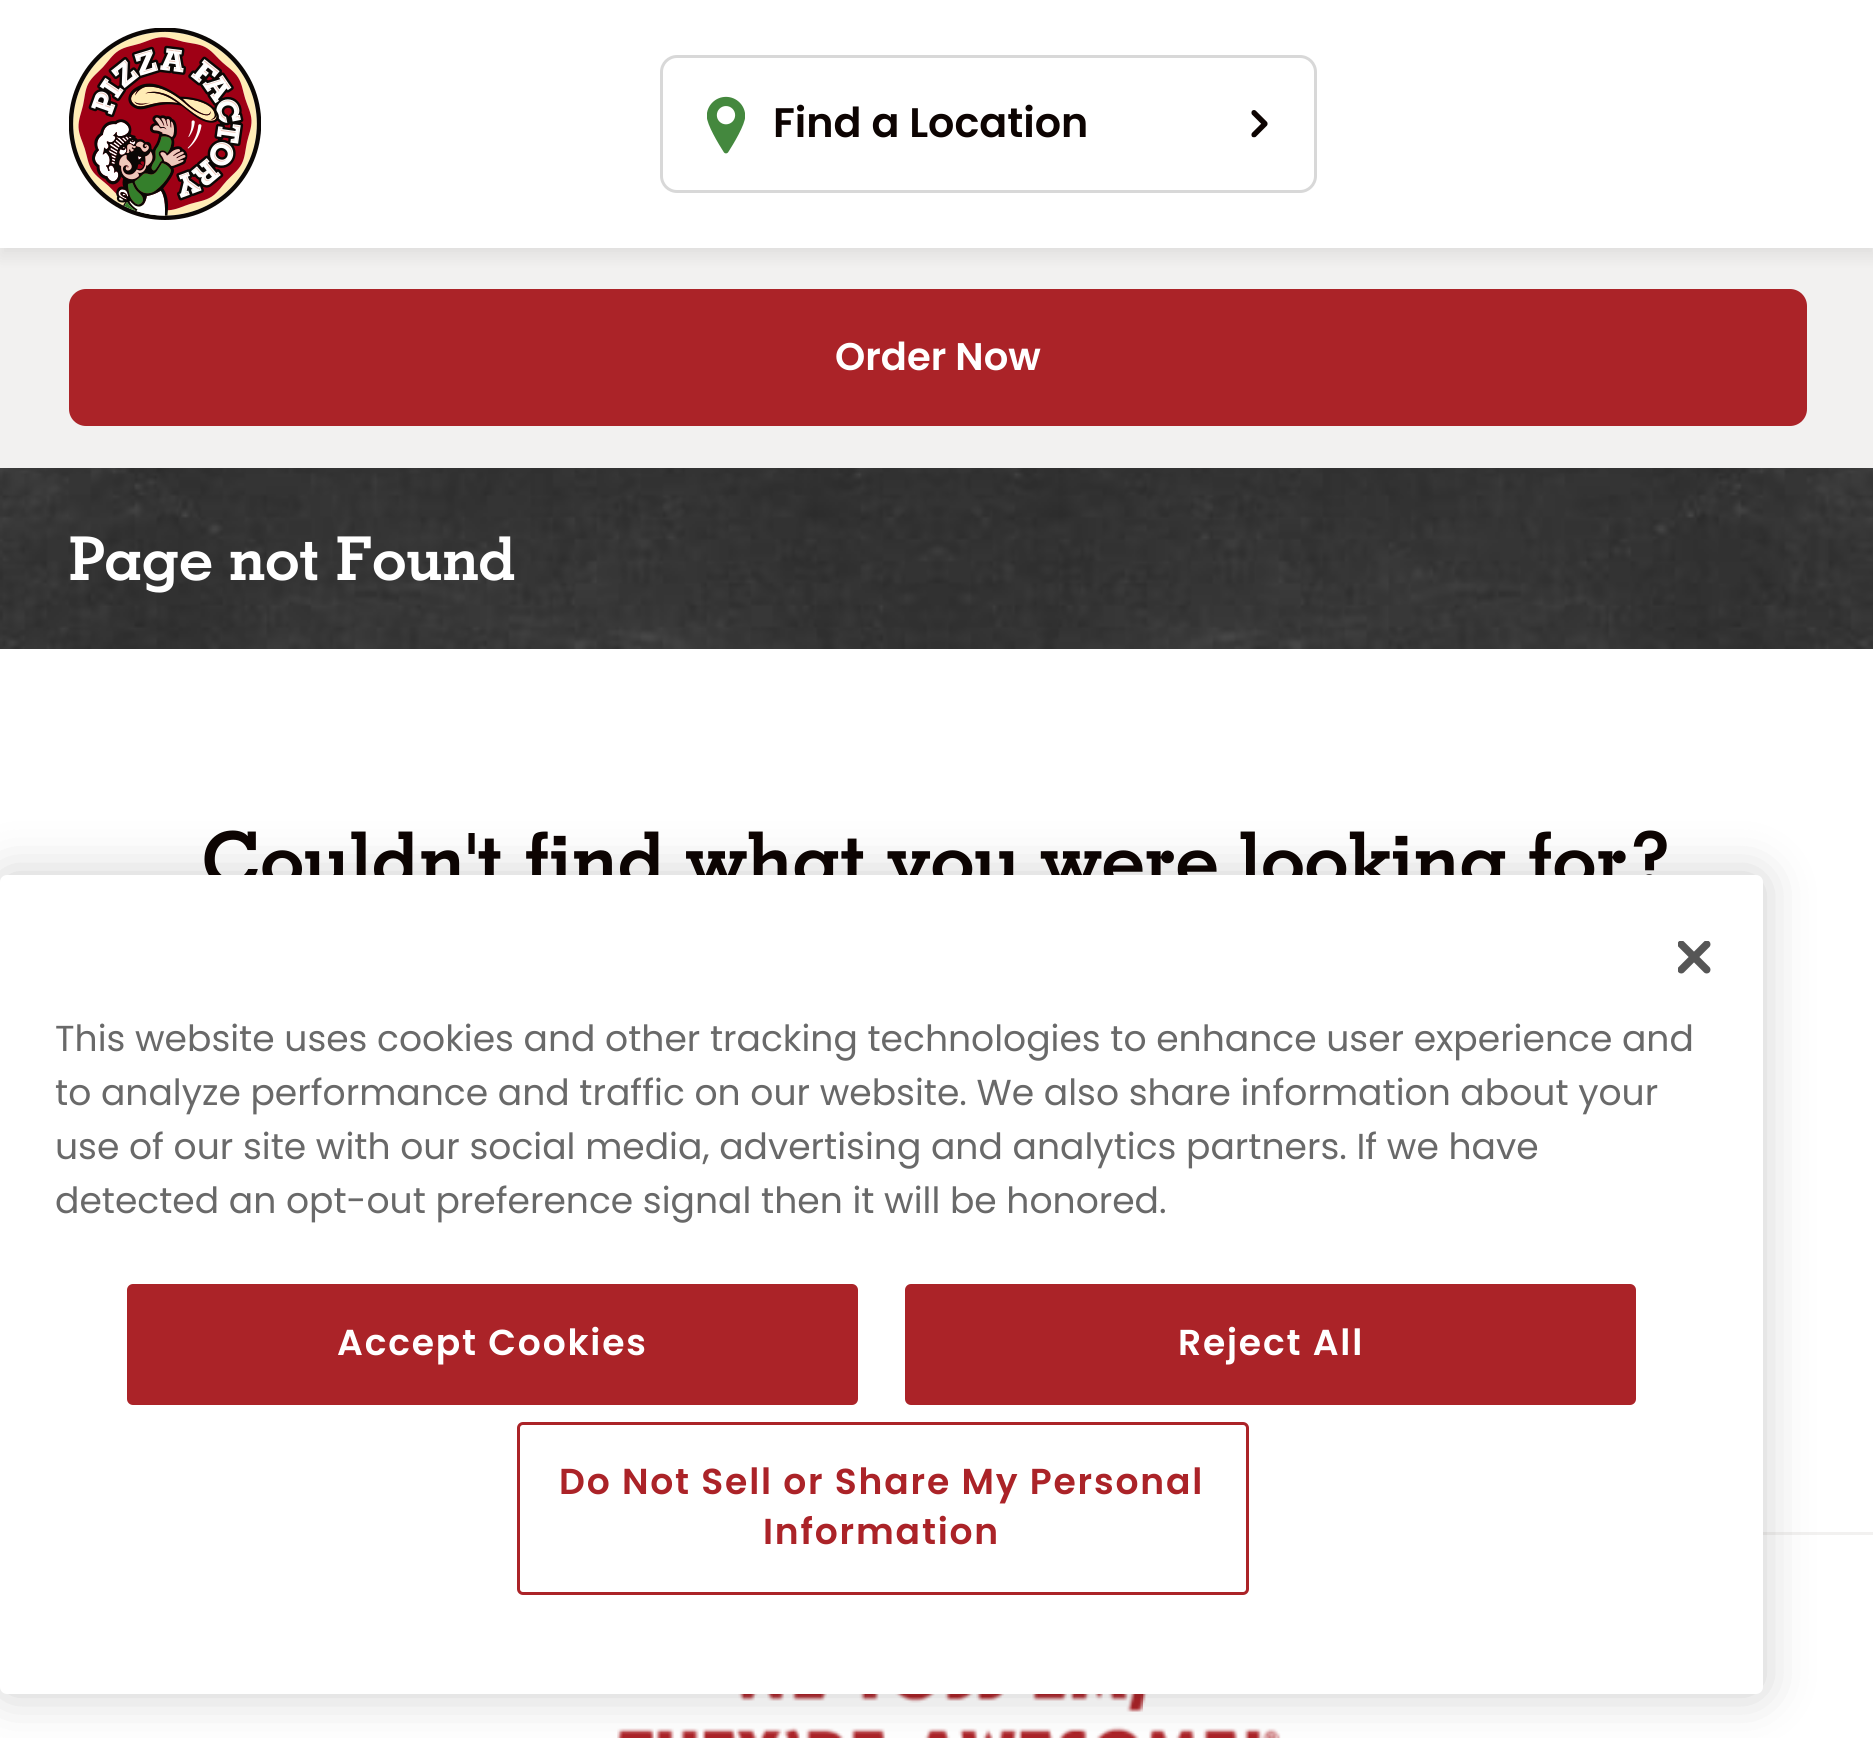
import math
import cairocffi as cairo

surface = cairo.ImageSurface(cairo.FORMAT_RGB24, 1873, 1738)
ctx = cairo.Context(surface)
options = cairo.FontOptions()
options.set_hint_metrics(cairo.HINT_METRICS_OFF)
options.set_hint_style(cairo.HINT_STYLE_NONE)
ctx.set_font_options(options)
ctx.set_miter_limit(4)


def rgb(r, g, b):
    ctx.set_source_rgb(r / 255, g / 255, b / 255)


def face(family, size, italic, bold):
    ctx.select_font_face(family, cairo.FONT_SLANT_ITALIC if italic else cairo.FONT_SLANT_NORMAL, cairo.FONT_WEIGHT_BOLD if bold else cairo.FONT_WEIGHT_NORMAL)
    ctx.set_font_size(size)


def label(x, y, s):
    ctx.move_to(x, y)
    ctx.show_text(s)


def tracked(x, y, s, letter, word):
    ctx.move_to(x, y)
    for ch in s:
        ctx.show_text(ch)
        ctx.rel_move_to(letter + word * (ch == ' '), 0)


def rect(x, y, w, h):
    ctx.rectangle(x, y, w, h)
    ctx.fill()


def rrect(x, y, w, h, r):
    ctx.new_sub_path()
    for i, (u, v) in enumerate([(x + w - r, y + h - r), (x + r, y + h - r), (x + r, y + r), (x + w - r, y + r)]):
        ctx.arc(u, v, r, i * math.pi / 2, (i + 1) * math.pi / 2)
    ctx.close_path()


def soft_shadow(x, y, w, h, r, blur, alpha):
    ctx.push_group_with_content(cairo.CONTENT_ALPHA)
    ctx.set_operator(cairo.OPERATOR_SOURCE)
    for i in range(15, -16, -2):
        e = blur * i / 6
        if min(w, h) + 2 * e > 0:
            ctx.set_source_rgba(0, 0, 0, alpha * math.erfc((i - 1) / 8.5) / 2)
            rrect(x - e, y - e, w + 2 * e, h + 2 * e, max(0, min(r + e + blur * .6, min(w, h) / 2 + e)))
            ctx.fill()
    ctx.mask(ctx.pop_group())


def image(path, x, y, w, h):
    ctx.save()
    ctx.set_source_surface(cairo.ImageSurface.create_from_png(path), x, y)
    ctx.rectangle(x, y, w, h)
    ctx.fill()
    ctx.restore()


rgb(255, 255, 255)
ctx.paint()
rgb(242, 241, 240)
rect(0, 248, 1873, 220)
rgb(0, 0, 0)
soft_shadow(0, 8, 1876, 248, 0, 8, 0.08)
rgb(255, 255, 255)
rect(0, 0, 1873, 248)
image('image0.png', 69, 28, 192, 192)
rrect(661.5, 56.5, 654, 135, 15.5)
rgb(216, 216, 216)
ctx.set_line_width(3)
ctx.stroke()
image('image1.png', 707, 96, 38, 58)
face('Poppins SemiBold', 41.25, 0, 0)
rgb(13, 4, 2)
label(773, 137, 'Find a Location')
image('image2.png', 1251, 110, 17, 28)
rgb(171, 35, 40)
rrect(69, 289, 1738, 137, 17)
ctx.fill()
face('Poppins SemiBold', 38.5, 0, 0)
rgb(255, 255, 255)
label(835, 370, 'Order Now')
image('image3.png', 0, 468, 1873, 181)
face('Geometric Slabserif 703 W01', 60.5, 0, 1)
label(69, 580, 'Page not Found')
face('Geometric Slabserif 703 W01', 77, 0, 1)
rgb(13, 4, 2)
label(202, 887, 'Couldn\'t find what you were looking for?')
rgb(242, 241, 240)
rect(1763, 1532, 110, 3)
image('image5.png', 617, 1694, 664, 44)
rgb(0, 0, 0)
soft_shadow(0, 875, 1763, 819, 7, 25, 0.2)
rgb(255, 255, 255)
rrect(0, 875, 1763, 819, 7)
ctx.fill()
image('image4.png', 1678, 941, 33, 33)
face('Poppins', 36.1, 0, 0)
rgb(105, 105, 105)
label(55, 1051, 'This website uses cookies and other tracking technologies to enhance user experience and')
label(55, 1105, 'to analyze performance and traffic on our website. We also share information about your')
label(55, 1159, 'use of our site with our social media, advertising and analytics partners. If we have')
label(55, 1213, 'detected an opt-out preference signal then it will be honored.')
rgb(171, 35, 40)
rrect(128.5, 1285.5, 728, 118, 4.5)
ctx.fill_preserve()
ctx.stroke()
face('Poppins SemiBold', 36.1, 0, 0)
rgb(255, 255, 255)
tracked(337, 1355, 'Accept Cookies', 1.8, 0)
rgb(171, 35, 40)
rrect(906.5, 1285.5, 728, 118, 4.5)
ctx.fill_preserve()
ctx.stroke()
rgb(255, 255, 255)
tracked(1178, 1355, 'Reject All', 1.8, 0)
rrect(518.5, 1423.5, 729, 170, 4.5)
rgb(171, 35, 40)
ctx.stroke()
tracked(559, 1494, 'Do Not Sell or Share My Personal', 1.8, 0)
tracked(763, 1544, 'Information', 1.8, 0)
surface.write_to_png('render.png')
